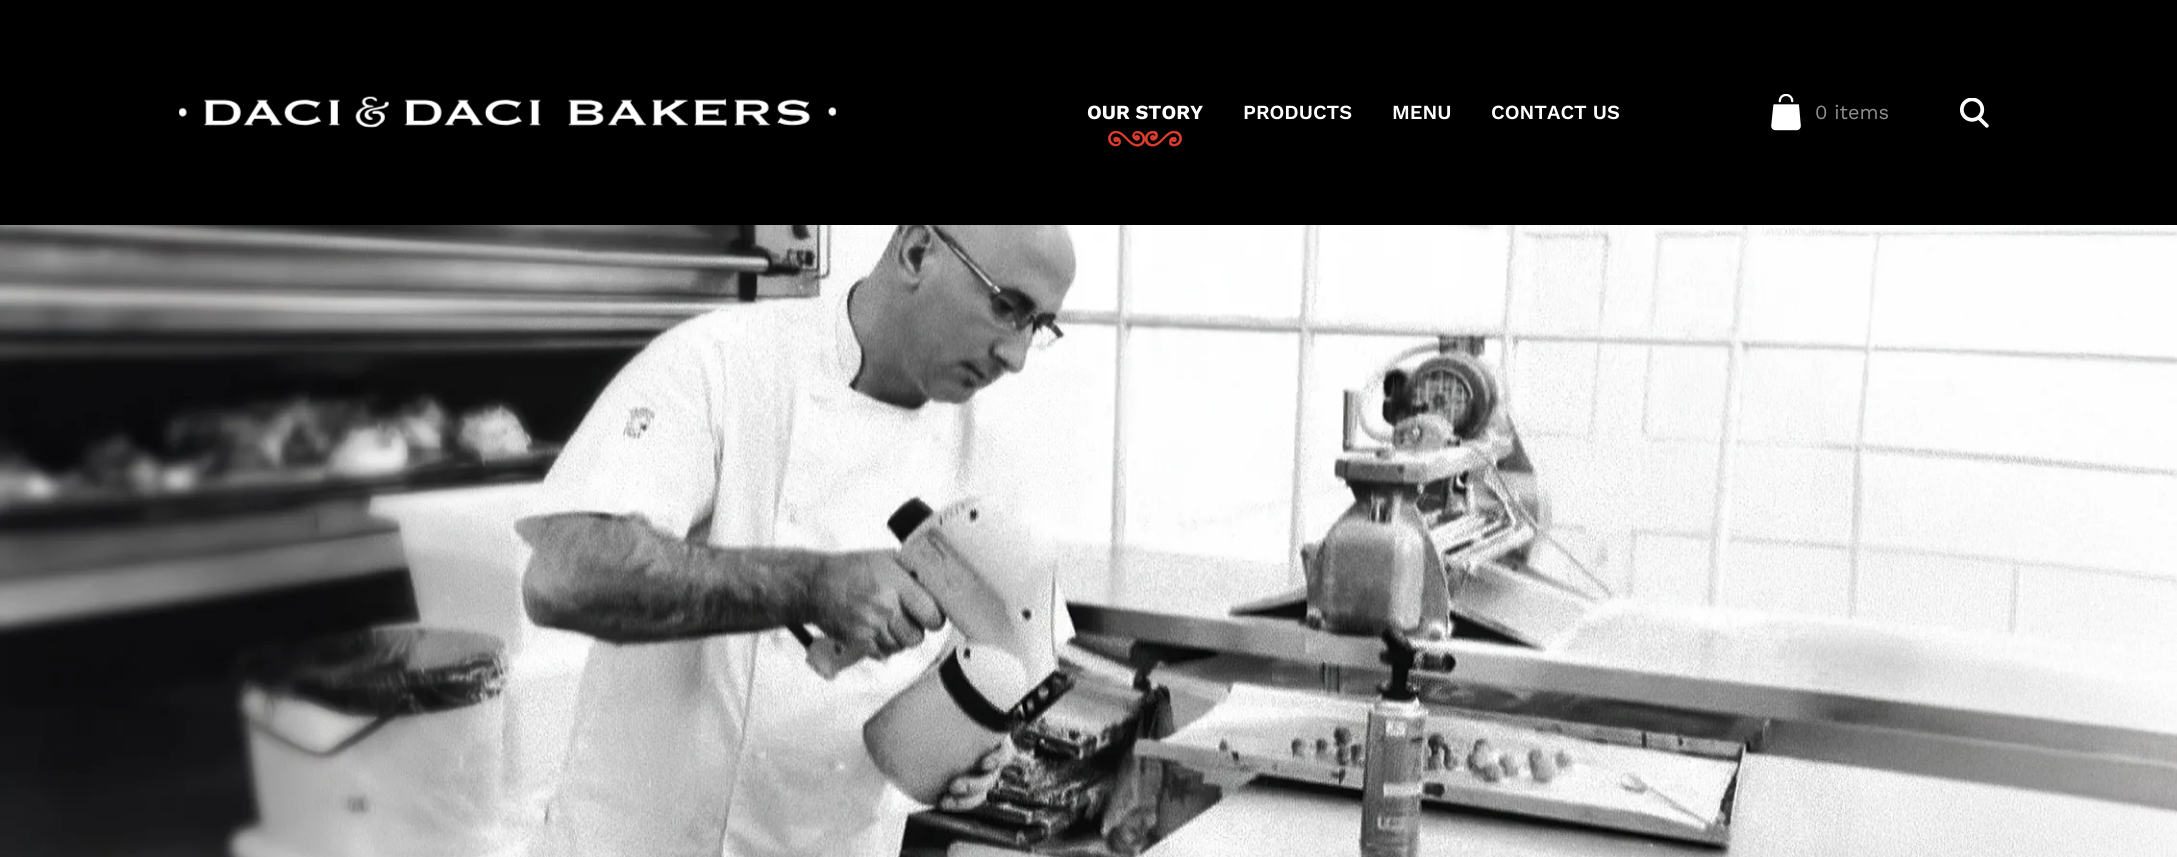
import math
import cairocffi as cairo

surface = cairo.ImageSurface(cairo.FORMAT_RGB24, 2177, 857)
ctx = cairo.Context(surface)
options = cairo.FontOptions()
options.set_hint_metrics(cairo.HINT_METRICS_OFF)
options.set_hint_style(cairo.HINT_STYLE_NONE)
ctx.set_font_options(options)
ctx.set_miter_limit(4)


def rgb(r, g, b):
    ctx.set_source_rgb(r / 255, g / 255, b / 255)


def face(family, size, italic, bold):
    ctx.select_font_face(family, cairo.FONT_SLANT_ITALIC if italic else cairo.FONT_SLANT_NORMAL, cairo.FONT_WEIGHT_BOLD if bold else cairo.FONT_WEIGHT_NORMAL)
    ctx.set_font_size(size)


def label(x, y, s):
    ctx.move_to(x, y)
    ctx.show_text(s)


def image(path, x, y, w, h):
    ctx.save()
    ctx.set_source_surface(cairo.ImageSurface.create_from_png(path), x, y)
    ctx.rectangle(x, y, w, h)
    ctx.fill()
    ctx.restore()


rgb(0, 0, 0)
ctx.paint()
image('image0.png', 179, 96, 658, 32)
face('Work Sans', 20, 0, 1)
rgb(255, 255, 255)
label(1087, 119, 'OUR STORY')
image('image1.png', 1108, 130, 74, 17)
face('Work Sans SemiBold', 20, 0, 0)
label(1243, 119, 'PRODUCTS')
label(1392, 119, 'MENU')
label(1491, 119, 'CONTACT US')
image('image2.png', 1771, 94, 30, 37)
face('Work Sans', 20, 0, 0)
rgb(143, 143, 143)
label(1815, 119, '0 items')
image('image3.png', 1959, 98, 30, 30)
image('image4.png', 0, 225, 2177, 632)
surface.write_to_png('render.png')
